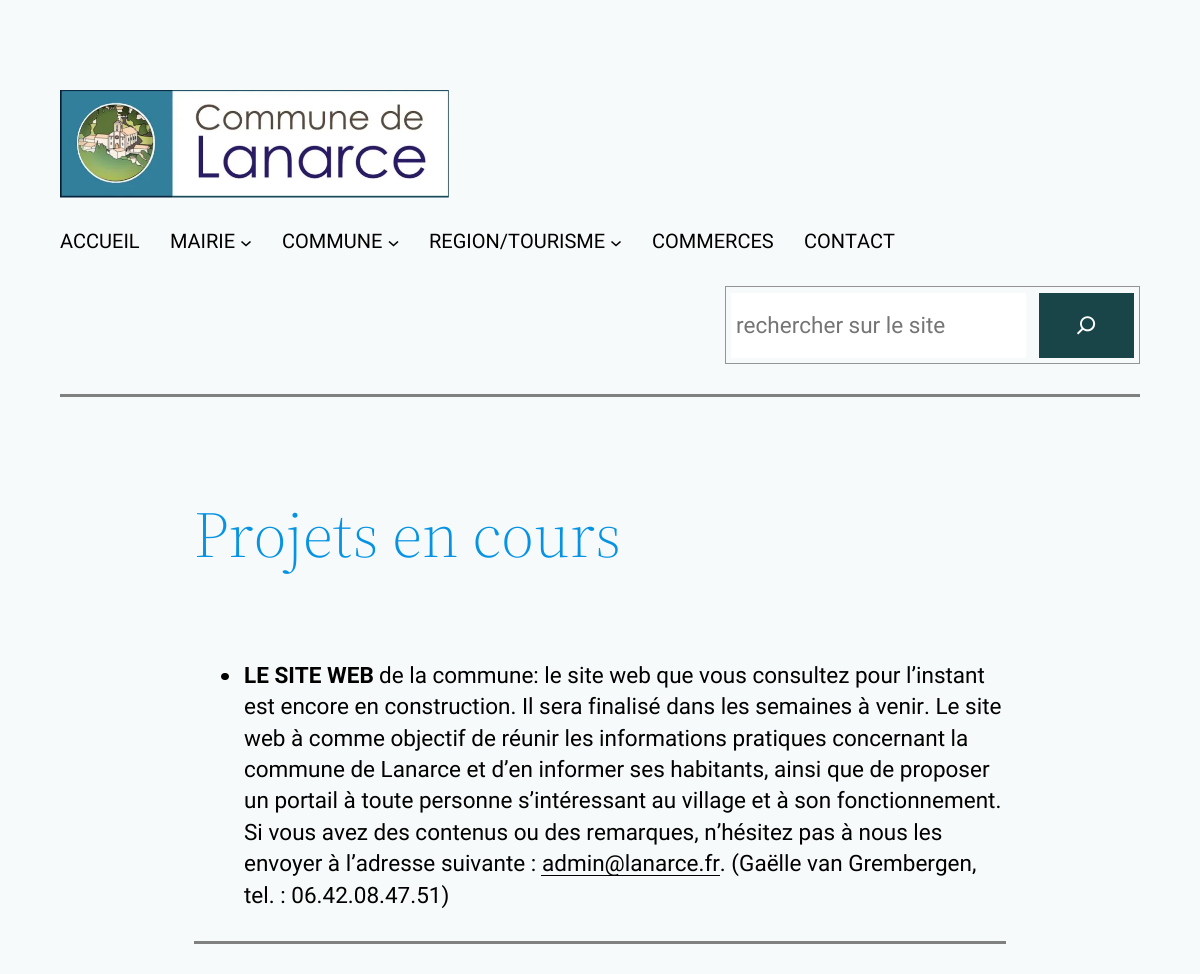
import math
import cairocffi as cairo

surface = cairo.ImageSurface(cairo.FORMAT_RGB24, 1200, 974)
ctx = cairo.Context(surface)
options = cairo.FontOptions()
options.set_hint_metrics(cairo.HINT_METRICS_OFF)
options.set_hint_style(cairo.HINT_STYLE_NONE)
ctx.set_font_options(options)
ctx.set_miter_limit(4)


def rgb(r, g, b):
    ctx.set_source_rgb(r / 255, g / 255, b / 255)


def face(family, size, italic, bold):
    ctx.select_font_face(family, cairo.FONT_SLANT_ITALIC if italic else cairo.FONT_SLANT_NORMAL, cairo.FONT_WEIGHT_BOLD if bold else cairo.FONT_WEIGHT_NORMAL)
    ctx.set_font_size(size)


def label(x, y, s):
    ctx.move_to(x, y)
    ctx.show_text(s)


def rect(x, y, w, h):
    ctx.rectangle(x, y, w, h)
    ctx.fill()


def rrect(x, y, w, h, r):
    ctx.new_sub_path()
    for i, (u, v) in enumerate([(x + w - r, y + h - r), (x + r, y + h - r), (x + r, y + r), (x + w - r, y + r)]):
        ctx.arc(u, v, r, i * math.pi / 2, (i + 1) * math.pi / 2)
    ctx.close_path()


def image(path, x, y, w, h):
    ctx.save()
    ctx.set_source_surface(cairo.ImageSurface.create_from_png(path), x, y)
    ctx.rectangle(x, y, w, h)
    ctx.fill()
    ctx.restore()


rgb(247, 250, 250)
ctx.paint()
image('image0.png', 60, 90, 389, 108)
face('Roboto', 20, 0, 0)
rgb(0, 0, 0)
label(60, 248, 'ACCUEIL')
label(170, 248, 'MAIRIE')
ctx.new_path()
ctx.move_to(241.5, 241.5)
ctx.line_to(246, 245.5)
ctx.line_to(250.5, 241.5)
ctx.set_line_width(1.5)
ctx.stroke()
label(282, 248, 'COMMUNE')
ctx.new_path()
ctx.move_to(389, 241.5)
ctx.line_to(393.5, 245.5)
ctx.line_to(398, 241.5)
ctx.stroke()
label(429, 248, 'REGION/TOURISME')
ctx.new_path()
ctx.move_to(611.5, 241.5)
ctx.line_to(616, 245.5)
ctx.line_to(620.5, 241.5)
ctx.stroke()
label(652, 248, 'COMMERCES')
label(804, 248, 'CONTACT')
ctx.rectangle(725.5, 286.5, 414, 77)
rgb(148, 148, 148)
ctx.set_line_width(1)
ctx.stroke()
rgb(255, 255, 255)
rect(731, 293, 295, 65)
face('Roboto', 22.5, 0, 0)
rgb(117, 117, 117)
label(736, 333, 'rechercher sur le site')
rgb(26, 69, 72)
rect(1039, 293, 95, 65)
image('image1.png', 1077, 316, 19, 19)
rgb(128, 128, 128)
rect(60, 394, 1080, 3)
face('Source Serif 4 Light', 65, 0, 0)
rgb(6, 147, 227)
label(194, 557, 'Projets en cours')
rgb(0, 0, 0)
rrect(221, 673, 8, 7, 3.5)
ctx.fill()
face('Roboto', 22.5, 0, 1)
label(244, 683, 'LE SITE WEB')
face('Roboto', 22.5, 0, 0)
label(379, 683, 'de la commune: le site web que vous consultez pour l’instant')
label(244, 714, 'est encore en construction. Il sera finalisé dans les semaines à venir. Le site')
label(244, 746, 'web à comme objectif de réunir les informations pratiques concernant la')
label(244, 777, 'commune de Lanarce et d’en informer ses habitants, ainsi que de proposer')
label(244, 808, 'un portail à toute personne s’intéressant au village et à son fonctionnement.')
label(244, 840, 'Si vous avez des contenus ou des remarques, n’hésitez pas à nous les')
label(244, 871, 'envoyer à l’adresse suivante :')
rect(541, 875, 179, 1)
label(542, 871, 'admin@lanarce.fr. (Gaëlle van Grembergen,')
label(244, 903, 'tel. : 06.42.08.47.51)')
rgb(128, 128, 128)
rect(194, 941, 812, 3)
surface.write_to_png('render.png')
